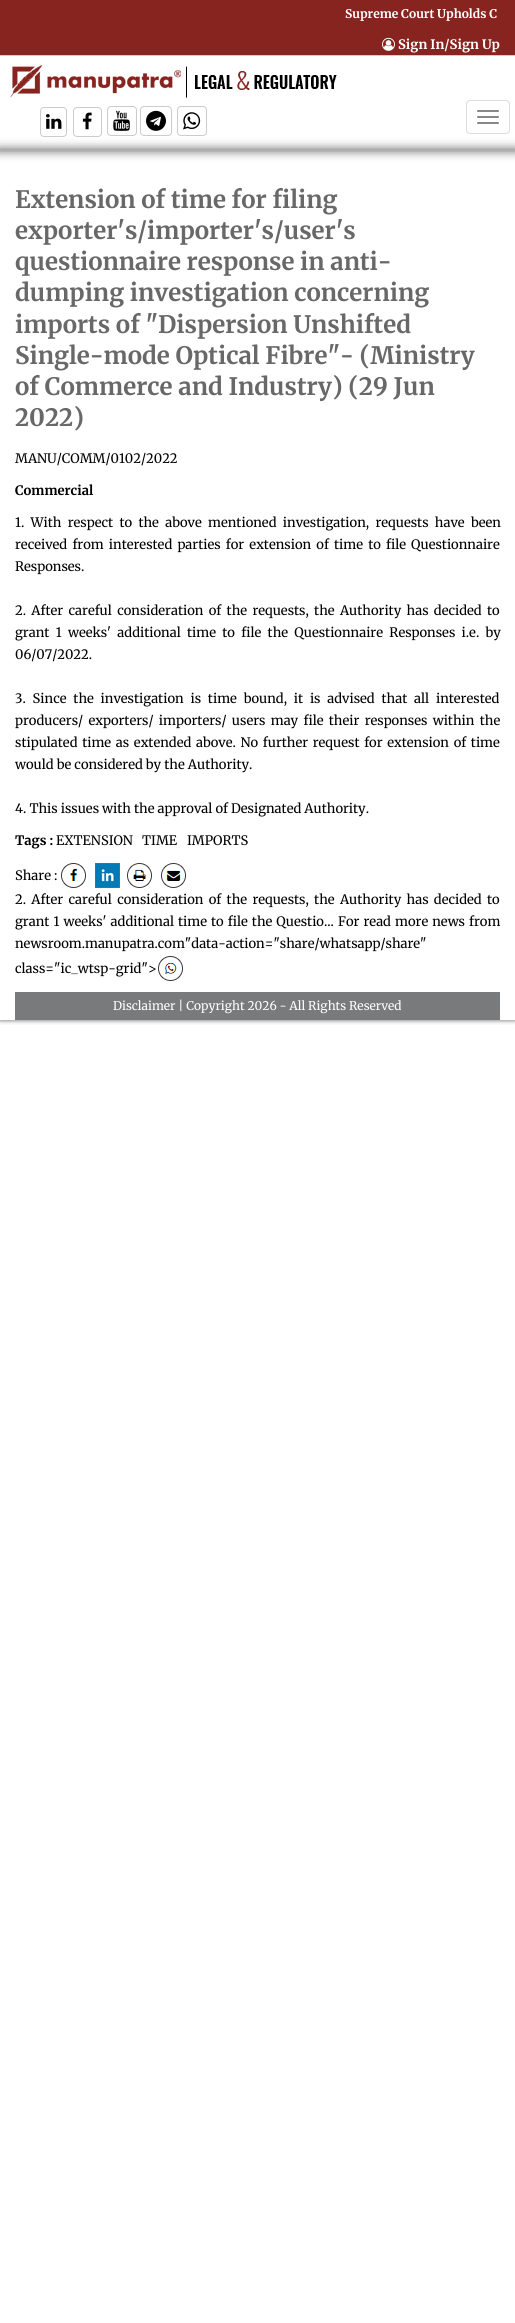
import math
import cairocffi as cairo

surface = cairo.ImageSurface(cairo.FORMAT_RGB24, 515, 2323)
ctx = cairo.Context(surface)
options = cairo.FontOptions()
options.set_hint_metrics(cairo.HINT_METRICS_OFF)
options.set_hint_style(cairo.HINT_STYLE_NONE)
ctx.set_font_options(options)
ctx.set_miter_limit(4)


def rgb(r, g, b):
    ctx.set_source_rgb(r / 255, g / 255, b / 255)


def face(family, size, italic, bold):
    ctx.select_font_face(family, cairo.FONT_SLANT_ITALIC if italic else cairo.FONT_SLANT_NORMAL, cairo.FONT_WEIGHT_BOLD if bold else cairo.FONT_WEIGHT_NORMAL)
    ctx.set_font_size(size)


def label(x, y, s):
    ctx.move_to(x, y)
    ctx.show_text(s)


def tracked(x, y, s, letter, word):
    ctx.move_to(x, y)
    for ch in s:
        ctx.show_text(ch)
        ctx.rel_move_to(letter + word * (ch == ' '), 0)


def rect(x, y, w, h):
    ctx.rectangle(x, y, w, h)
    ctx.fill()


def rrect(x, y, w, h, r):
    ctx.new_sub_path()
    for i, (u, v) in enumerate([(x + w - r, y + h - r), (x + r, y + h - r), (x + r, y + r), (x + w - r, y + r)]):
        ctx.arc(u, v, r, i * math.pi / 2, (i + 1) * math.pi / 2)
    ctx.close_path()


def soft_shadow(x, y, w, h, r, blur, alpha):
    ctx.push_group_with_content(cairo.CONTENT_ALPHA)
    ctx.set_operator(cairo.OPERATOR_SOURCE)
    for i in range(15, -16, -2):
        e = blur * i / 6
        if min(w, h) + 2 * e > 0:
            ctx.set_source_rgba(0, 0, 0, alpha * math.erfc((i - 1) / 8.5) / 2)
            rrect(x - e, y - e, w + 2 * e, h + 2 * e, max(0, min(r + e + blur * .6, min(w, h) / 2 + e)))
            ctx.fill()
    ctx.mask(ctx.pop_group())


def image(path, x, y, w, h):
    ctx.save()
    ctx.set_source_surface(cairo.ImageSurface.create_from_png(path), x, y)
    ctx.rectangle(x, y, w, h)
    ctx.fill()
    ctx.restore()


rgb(255, 255, 255)
ctx.paint()
ctx.save()
ctx.rectangle(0, 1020, 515, 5)
ctx.clip()
rgb(50, 50, 50)
soft_shadow(0, 0, 515, 1020, 0, 2.5, 0.79)
ctx.restore()
rgb(136, 36, 31)
rect(0, 0, 515, 55)
rgb(204, 204, 204)
rect(0, 55, 515, 1)
face('Merriweather', 12, 0, 1)
rgb(255, 255, 255)
label(345, 18, 'Supreme Court Upholds C')
image('image0.png', 382, 37, 13, 14)
face('Merriweather', 13, 0, 1)
label(398, 49, 'Sign In/Sign Up')
image('image1.png', 10, 65, 327, 33)
rrect(40.5, 107.5, 26, 29, 3.5)
rgb(204, 204, 204)
ctx.set_line_width(1)
ctx.stroke()
image('image2.png', 46, 114, 16, 15)
rrect(73.5, 107.5, 28, 29, 3.5)
ctx.stroke()
image('image3.png', 82, 112, 10, 18)
rrect(107.5, 106.5, 29, 29, 3.5)
ctx.stroke()
image('image4.png', 113, 110, 17, 21)
rrect(140.5, 106.5, 31, 29, 3.5)
ctx.stroke()
image('image5.png', 146, 110, 20, 21)
rrect(177.5, 106.5, 29, 29, 3.5)
ctx.stroke()
image('image6.png', 183, 112, 18, 18)
rgb(50, 50, 50)
soft_shadow(0, 149, 515, 2, 0, 5, 0.75)
rrect(466.5, 100.5, 43, 33, 3.5)
rgb(221, 221, 221)
ctx.stroke()
rgb(136, 136, 136)
rrect(477, 110, 22, 2, 1)
ctx.fill()
rrect(477, 116, 22, 2, 1)
ctx.fill()
rrect(477, 122, 22, 2, 1)
ctx.fill()
face('Merriweather', 24, 0, 1)
rgb(104, 104, 104)
label(15, 208, 'Extension of time for filing')
label(15, 239, 'exporter\'s/importer\'s/user\'s')
label(15, 270, 'questionnaire response in anti-')
label(15, 301, 'dumping investigation concerning')
label(15, 333, 'imports of "Dispersion Unshifted')
label(15, 364, 'Single-mode Optical Fibre"- (Ministry')
label(15, 395, 'of Commerce and Industry) (29 Jun')
label(15, 426, '2022)')
face('Merriweather', 13, 0, 0)
rgb(0, 0, 0)
label(15, 463, 'MANU/COMM/0102/2022')
face('Merriweather', 13, 0, 1)
label(15, 495, 'Commercial')
face('Merriweather', 13, 0, 0)
tracked(15, 527, '1. With respect to the above mentioned investigation, requests have been', 0, 3.25)
tracked(15, 549, 'received from interested parties for extension of time to file Questionnaire', 0, 2.1)
label(15, 571, 'Responses.')
tracked(15, 615, '2. After careful consideration of the requests, the Authority has decided to', 0, 2.25)
tracked(15, 637, 'grant 1 weeks\' additional time to file the Questionnaire Responses i.e. by', 0, 3.25)
label(15, 659, '06/07/2022.')
tracked(15, 703, '3. Since the investigation is time bound, it is advised that all interested', 0, 3.75)
tracked(15, 725, 'producers/ exporters/ importers/ users may file their responses within the', 0, 2.25)
tracked(15, 747, 'stipulated time as extended above. No further request for extension of time', 0, 1.6)
label(15, 769, 'would be considered by the Authority.')
label(15, 813, '4. This issues with the approval of Designated Authority.')
face('Merriweather', 13, 0, 1)
label(15, 845, 'Tags :')
face('Merriweather', 13, 0, 0)
label(56, 845, 'EXTENSION')
label(142, 845, 'TIME')
label(187, 845, 'IMPORTS')
label(15, 880, 'Share :')
image('image7.png', 61, 863, 25, 25)
image('image8.png', 95, 863, 25, 25)
image('image9.png', 127, 863, 25, 25)
image('image10.png', 161, 863, 25, 25)
tracked(15, 904, '2. After careful consideration of the requests, the Authority has decided to', 0, 2.25)
tracked(15, 926, 'grant 1 weeks\' additional time to file the Questio...', 0, 1)
tracked(338, 926, 'For read more news from', 0, 1)
label(15, 948, 'newsroom.manupatra.com"data-action="share/whatsapp/share"')
label(15, 973, 'class="ic_wtsp-grid">')
image('image11.png', 158, 956, 25, 25)
rgb(120, 122, 124)
rect(15, 992, 485, 28)
face('Merriweather', 12, 0, 0)
rgb(255, 255, 255)
label(113, 1010, 'Disclaimer | Copyright 2026 - All Rights Reserved')
surface.write_to_png('render.png')
